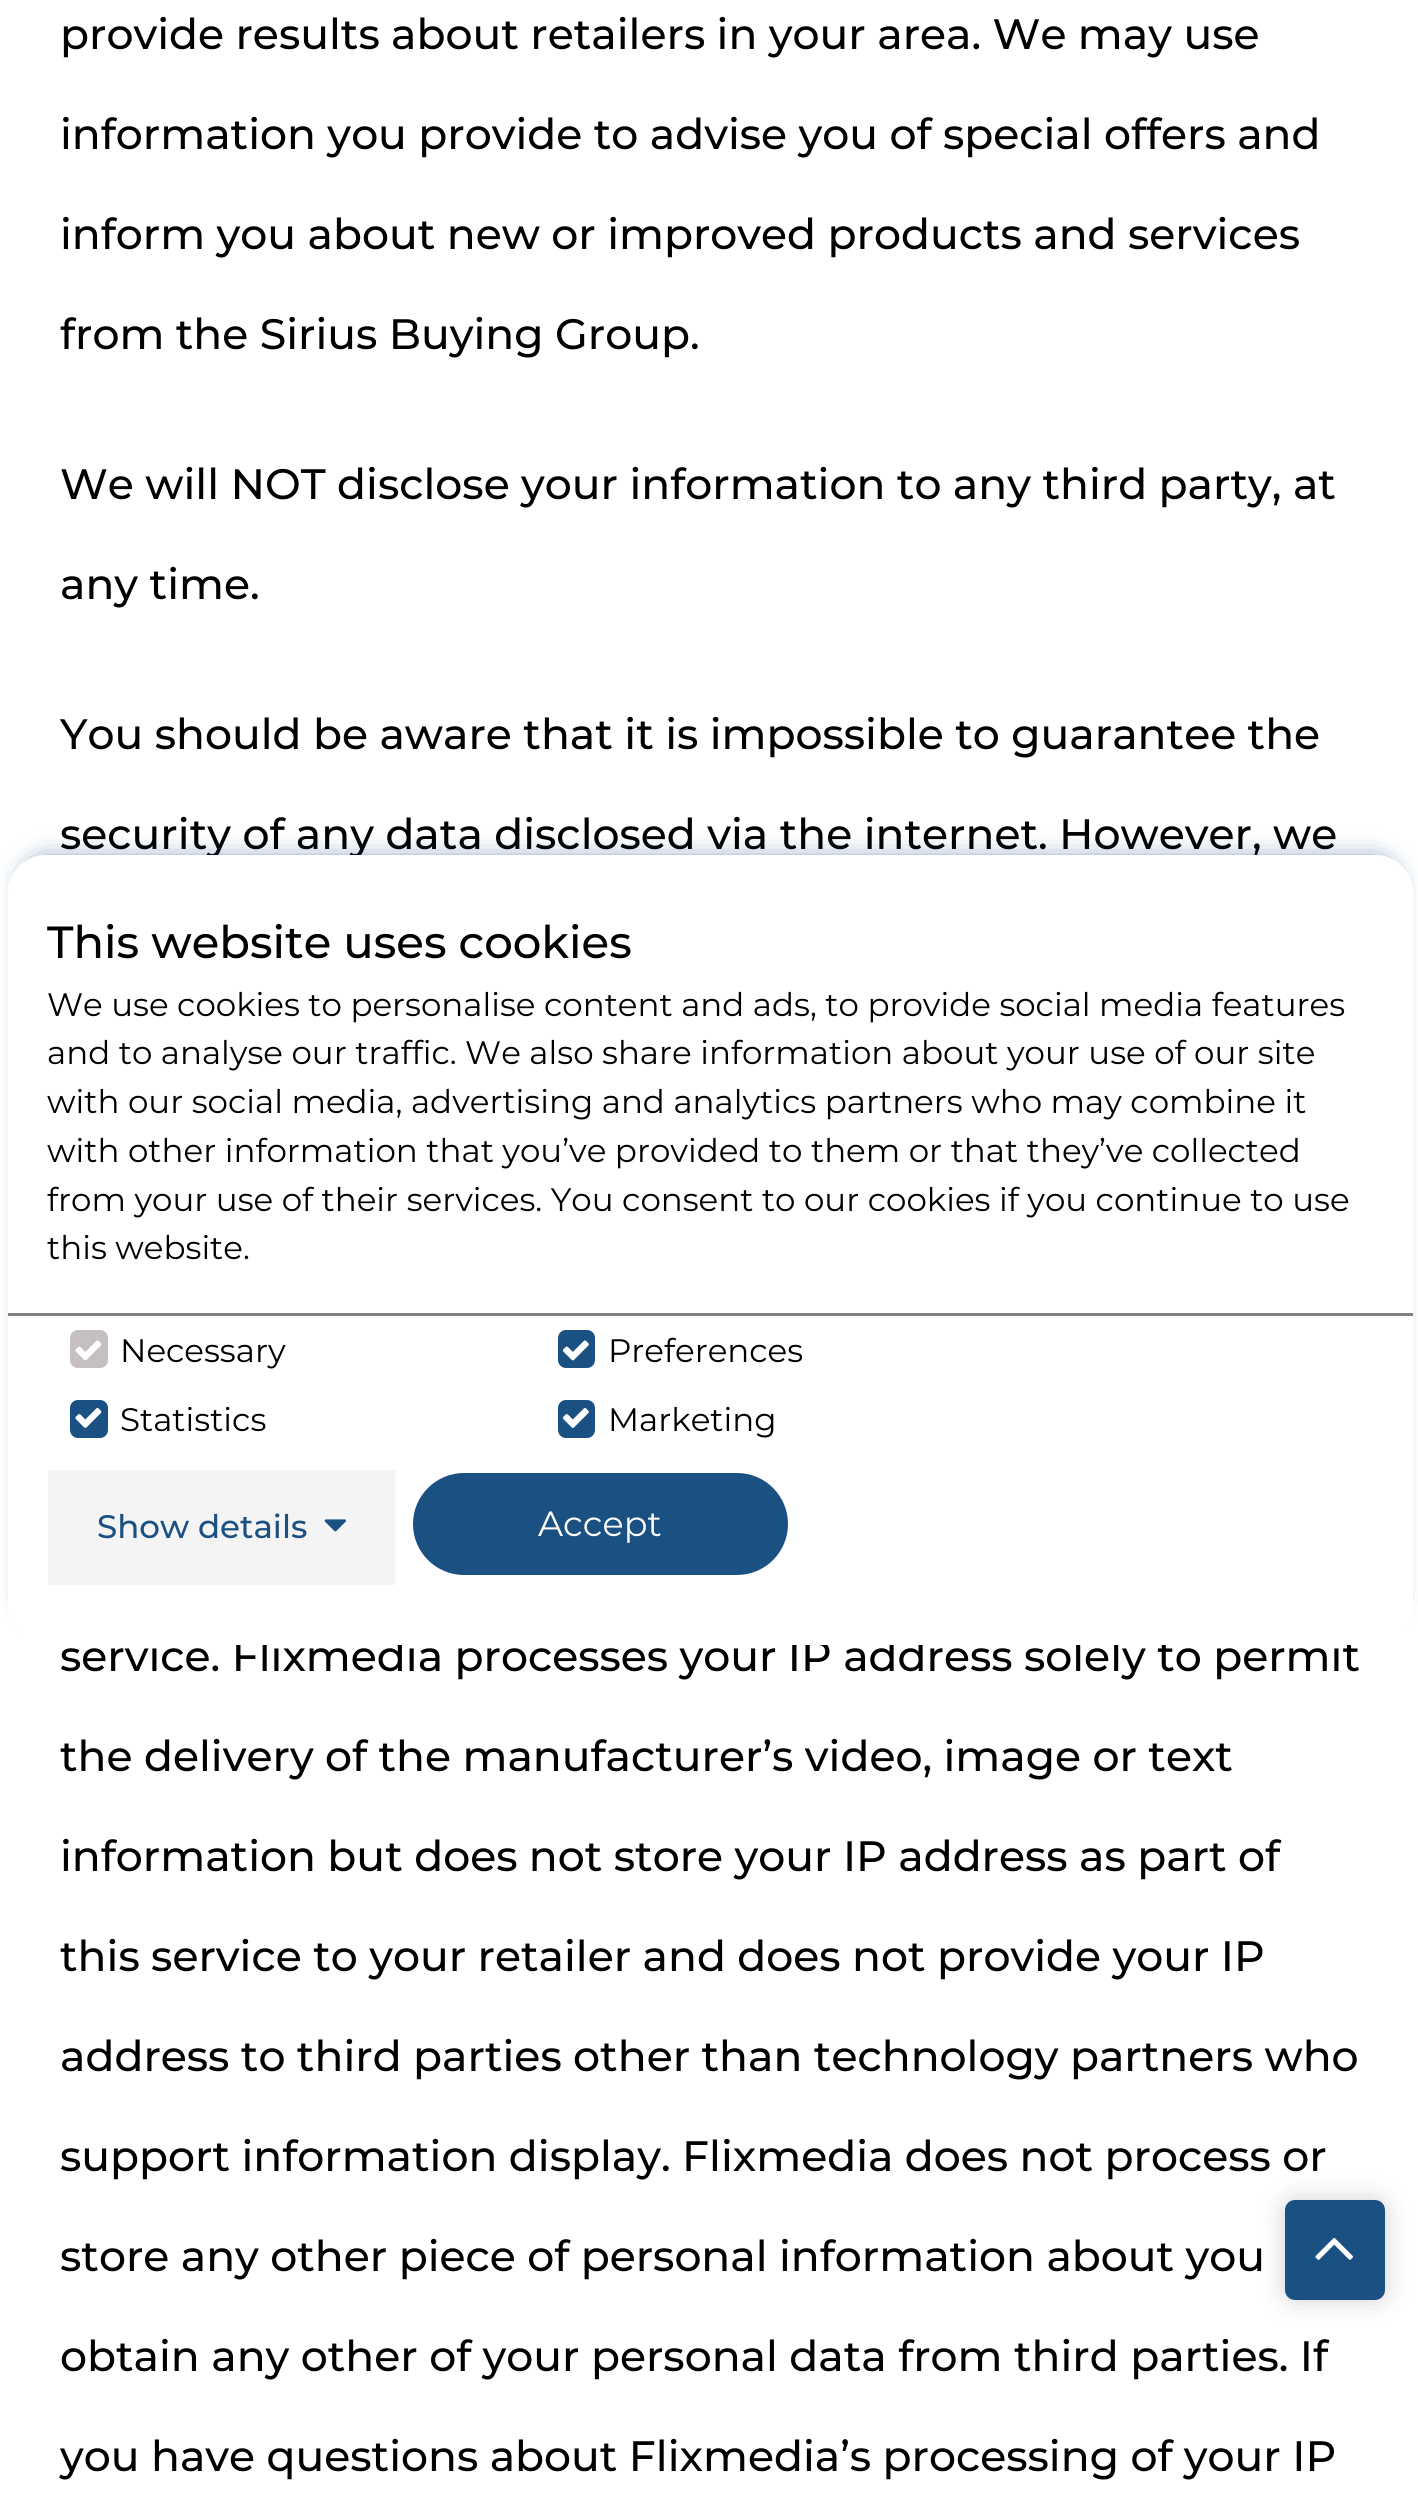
import math
import cairocffi as cairo

surface = cairo.ImageSurface(cairo.FORMAT_RGB24, 1418, 2498)
ctx = cairo.Context(surface)
options = cairo.FontOptions()
options.set_hint_metrics(cairo.HINT_METRICS_OFF)
options.set_hint_style(cairo.HINT_STYLE_NONE)
ctx.set_font_options(options)
ctx.set_miter_limit(4)


def rgb(r, g, b):
    ctx.set_source_rgb(r / 255, g / 255, b / 255)


def face(family, size, italic, bold):
    ctx.select_font_face(family, cairo.FONT_SLANT_ITALIC if italic else cairo.FONT_SLANT_NORMAL, cairo.FONT_WEIGHT_BOLD if bold else cairo.FONT_WEIGHT_NORMAL)
    ctx.set_font_size(size)


def label(x, y, s):
    ctx.move_to(x, y)
    ctx.show_text(s)


def rect(x, y, w, h):
    ctx.rectangle(x, y, w, h)
    ctx.fill()


def rrect(x, y, w, h, r):
    ctx.new_sub_path()
    for i, (u, v) in enumerate([(x + w - r, y + h - r), (x + r, y + h - r), (x + r, y + r), (x + w - r, y + r)]):
        ctx.arc(u, v, r, i * math.pi / 2, (i + 1) * math.pi / 2)
    ctx.close_path()


def soft_shadow(x, y, w, h, r, blur, alpha):
    ctx.push_group_with_content(cairo.CONTENT_ALPHA)
    ctx.set_operator(cairo.OPERATOR_SOURCE)
    for i in range(15, -16, -2):
        e = blur * i / 6
        if min(w, h) + 2 * e > 0:
            ctx.set_source_rgba(0, 0, 0, alpha * math.erfc((i - 1) / 8.5) / 2)
            rrect(x - e, y - e, w + 2 * e, h + 2 * e, max(0, min(r + e + blur * .6, min(w, h) / 2 + e)))
            ctx.fill()
    ctx.mask(ctx.pop_group())


def image(path, x, y, w, h):
    ctx.save()
    ctx.set_source_surface(cairo.ImageSurface.create_from_png(path), x, y)
    ctx.rectangle(x, y, w, h)
    ctx.fill()
    ctx.restore()


rgb(255, 255, 255)
ctx.paint()
face('Montserrat Medium', 42.5, 0, 0)
rgb(0, 0, 0)
label(60, 49, 'provide results about retailers in your area. We may use')
label(60, 149, 'information you provide to advise you of special offers and')
label(60, 249, 'inform you about new or improved products and services')
label(60, 349, 'from the Sirius Buying Group.')
label(60, 499, 'We will NOT disclose your information to any third party, at')
label(60, 599, 'any time.')
label(60, 749, 'You should be aware that it is impossible to guarantee the')
label(60, 849, 'security of any data disclosed via the internet. However, we')
label(60, 1671, 'service. Flixmedia processes your IP address solely to permit')
label(60, 1771, 'the delivery of the manufacturer’s video, image or text')
label(60, 1871, 'information but does not store your IP address as part of')
label(60, 1971, 'this service to your retailer and does not provide your IP')
label(60, 2071, 'address to third parties other than technology partners who')
label(60, 2171, 'support information display. Flixmedia does not process or')
label(60, 2271, 'store any other piece of personal information about you')
label(60, 2371, 'obtain any other of your personal data from third parties. If')
label(60, 2471, 'you have questions about Flixmedia’s processing of your IP')
rgb(27, 80, 131)
soft_shadow(30, 865, 1360, 745, 15, 14, 1)
rgb(255, 255, 255)
rrect(8, 855, 1405, 790, 38)
ctx.fill()
face('Montserrat Medium', 45, 0, 0)
rgb(0, 0, 0)
label(47, 958, 'This website uses cookies')
face('Montserrat', 32.5, 0, 0)
label(47, 1016, 'We use cookies to personalise content and ads, to provide social media features')
label(47, 1064, 'and to analyse our traffic. We also share information about your use of our site')
label(47, 1113, 'with our social media, advertising and analytics partners who may combine it')
label(47, 1162, 'with other information that you’ve provided to them or that they’ve collected')
label(47, 1211, 'from your use of their services. You consent to our cookies if you continue to use')
label(47, 1259, 'this website.')
rgb(128, 128, 128)
rect(8, 1313, 1405, 3)
rgb(197, 191, 192)
rrect(70, 1330, 38, 38, 8)
ctx.fill()
image('image0.png', 75, 1340, 27, 21)
rgb(0, 0, 0)
label(120, 1362, 'Necessary')
rgb(27, 80, 131)
rrect(558, 1330, 37, 38, 8)
ctx.fill()
image('image1.png', 562, 1340, 27, 21)
rgb(0, 0, 0)
label(608, 1362, 'Preferences')
rgb(27, 80, 131)
rrect(70, 1400, 38, 38, 8)
ctx.fill()
image('image2.png', 75, 1408, 27, 20)
rgb(0, 0, 0)
label(120, 1431, 'Statistics')
rgb(27, 80, 131)
rrect(558, 1400, 37, 38, 8)
ctx.fill()
image('image3.png', 562, 1408, 27, 20)
rgb(0, 0, 0)
label(608, 1431, 'Marketing')
rgb(244, 244, 244)
rect(48, 1470, 347, 115)
face('Montserrat Medium', 32.5, 0, 0)
rgb(27, 80, 131)
label(97, 1538, 'Show details')
image('image4.png', 324, 1519, 22, 13)
rrect(413, 1473, 375, 102, 51)
ctx.fill()
face('Montserrat', 35, 0, 0)
rgb(255, 255, 255)
label(538, 1536, 'Accept')
rgb(0, 0, 0)
soft_shadow(1285, 2200, 100, 100, 10, 12.5, 0.18)
rgb(27, 80, 131)
rrect(1285, 2200, 100, 100, 10)
ctx.fill()
image('image5.png', 1315, 2238, 38, 22)
surface.write_to_png('render.png')
